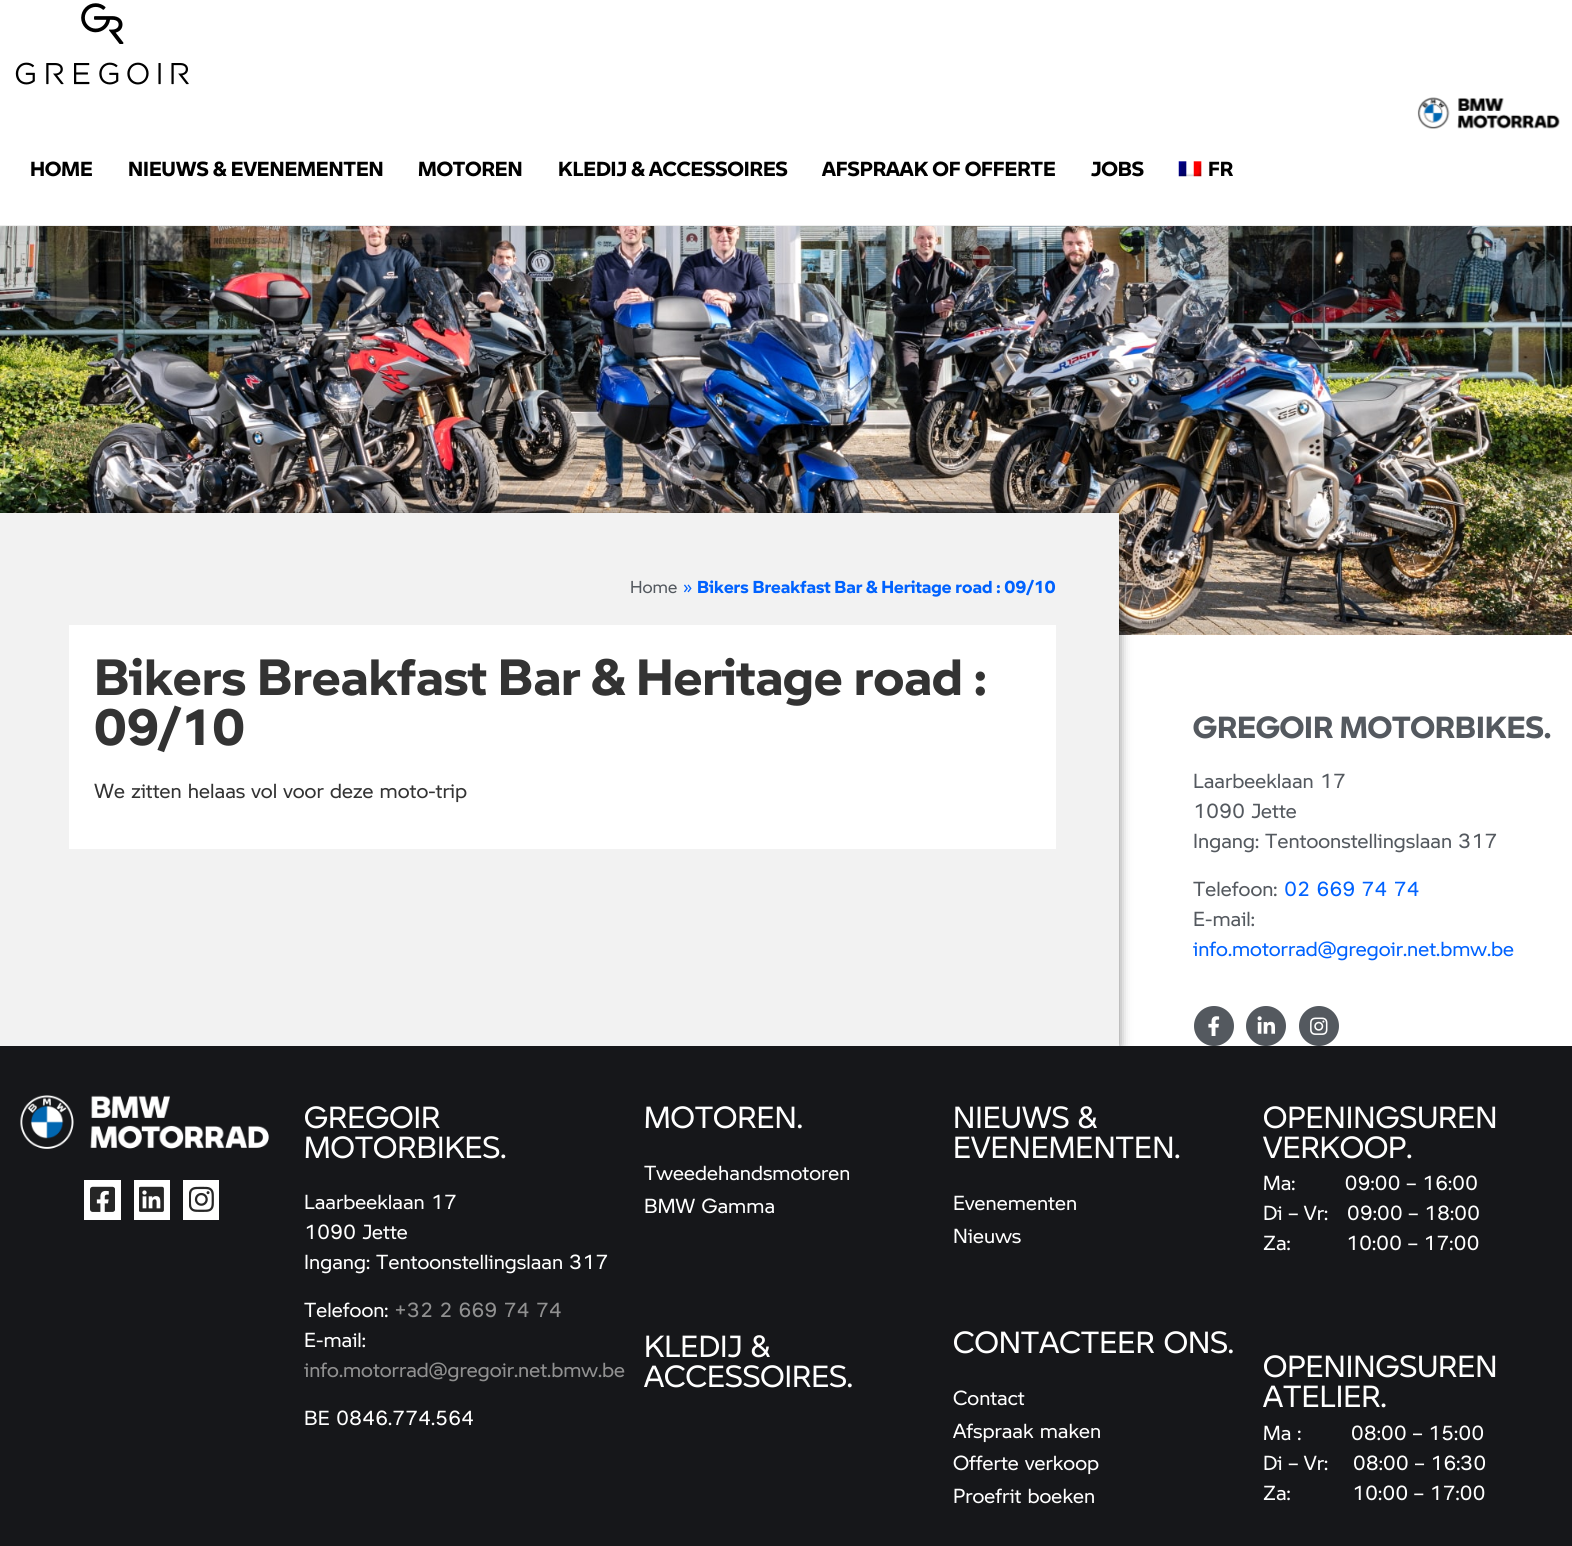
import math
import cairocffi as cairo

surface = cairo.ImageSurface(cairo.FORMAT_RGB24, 1572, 1546)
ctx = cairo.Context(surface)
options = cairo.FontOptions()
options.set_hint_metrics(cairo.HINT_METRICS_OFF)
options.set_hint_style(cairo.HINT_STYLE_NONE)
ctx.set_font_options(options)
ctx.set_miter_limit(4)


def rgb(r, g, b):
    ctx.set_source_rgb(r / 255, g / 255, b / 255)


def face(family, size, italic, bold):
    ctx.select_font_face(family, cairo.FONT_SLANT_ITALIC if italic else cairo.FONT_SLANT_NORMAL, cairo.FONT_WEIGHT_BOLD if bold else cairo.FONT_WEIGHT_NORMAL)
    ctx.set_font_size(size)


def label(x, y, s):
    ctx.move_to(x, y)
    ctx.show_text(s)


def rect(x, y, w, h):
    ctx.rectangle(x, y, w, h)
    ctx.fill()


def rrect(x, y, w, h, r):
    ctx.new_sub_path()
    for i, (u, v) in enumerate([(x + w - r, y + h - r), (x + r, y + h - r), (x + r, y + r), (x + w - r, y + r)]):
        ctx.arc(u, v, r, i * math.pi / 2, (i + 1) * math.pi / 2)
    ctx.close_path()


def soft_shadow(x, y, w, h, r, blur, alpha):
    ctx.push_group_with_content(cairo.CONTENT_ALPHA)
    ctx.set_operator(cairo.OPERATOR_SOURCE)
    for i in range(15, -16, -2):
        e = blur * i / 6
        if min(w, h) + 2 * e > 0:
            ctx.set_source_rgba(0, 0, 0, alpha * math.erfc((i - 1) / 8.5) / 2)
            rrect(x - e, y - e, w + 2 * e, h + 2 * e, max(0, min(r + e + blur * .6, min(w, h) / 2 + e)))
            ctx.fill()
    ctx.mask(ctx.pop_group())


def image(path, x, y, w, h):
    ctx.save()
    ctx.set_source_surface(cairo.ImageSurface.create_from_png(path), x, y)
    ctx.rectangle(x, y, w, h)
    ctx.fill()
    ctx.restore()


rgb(255, 255, 255)
ctx.paint()
rgb(239, 239, 239)
rect(0, 225, 1572, 1)
image('image0.png', 1417, 97, 143, 32)
image('image1.png', 15, 3, 174, 82)
face('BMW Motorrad', 20, 0, 1)
rgb(0, 0, 0)
label(30, 176, 'HOME')
label(128, 176, 'NIEUWS & EVENEMENTEN')
label(418, 176, 'MOTOREN')
label(558, 176, 'KLEDIJ & ACCESSOIRES')
label(822, 176, 'AFSPRAAK OF OFFERTE')
label(1091, 176, 'JOBS')
image('image2.png', 1178, 161, 24, 16)
label(1208, 176, 'FR')
image('image3.png', 0, 226, 1572, 409)
rgb(0, 0, 0)
soft_shadow(0, 513, 1119, 533, 0, 6, 0.5)
rgb(242, 242, 242)
rect(0, 513, 1119, 533)
face('BMW Motorrad', 17, 0, 0)
rgb(84, 89, 95)
label(630, 593, 'Home')
rgb(0, 98, 255)
label(683, 593, '»')
face('BMW Motorrad', 17, 0, 1)
label(697, 593, 'Bikers Breakfast Bar & Heritage road : 09/10')
rgb(255, 255, 255)
rect(69, 625, 987, 224)
face('BMW Motorrad', 50, 0, 1)
rgb(51, 51, 51)
label(94, 695, 'Bikers Breakfast Bar & Heritage road :')
label(94, 745, '09/10')
face('BMW Motorrad', 20, 0, 0)
label(94, 798, 'We zitten helaas vol voor deze moto-trip')
face('BMW Motorrad', 30, 0, 1)
rgb(84, 89, 95)
label(1193, 738, 'GREGOIR MOTORBIKES.')
face('BMW Motorrad', 20, 0, 0)
label(1193, 788, 'Laarbeeklaan 17')
label(1193, 818, '1090 Jette')
label(1193, 848, 'Ingang: Tentoonstellingslaan 317')
label(1193, 896, 'Telefoon:')
rgb(0, 98, 255)
label(1284, 896, '02 669 74 74')
rgb(84, 89, 95)
label(1193, 926, 'E-mail:')
rgb(0, 98, 255)
label(1193, 956, 'info.motorrad@gregoir.net.bmw.be')
rgb(84, 89, 95)
ctx.new_path()
ctx.arc(1214, 1026, 20, 0, 2 * math.pi)
ctx.fill()
image('image4.png', 1208, 1016, 12, 20)
ctx.arc(1266, 1026, 20, 0, 2 * math.pi)
ctx.fill()
image('image5.png', 1257, 1016, 18, 18)
ctx.arc(1319, 1026, 20, 0, 2 * math.pi)
ctx.fill()
image('image6.png', 1310, 1017, 18, 18)
rgb(22, 23, 26)
rect(0, 1046, 1572, 500)
image('image7.png', 20, 1095, 249, 54)
rgb(255, 255, 255)
rect(84, 1180, 37, 40)
image('image8.png', 90, 1186, 25, 26)
rect(134, 1180, 36, 40)
image('image9.png', 139, 1186, 25, 26)
rect(183, 1180, 36, 40)
image('image10.png', 189, 1186, 25, 26)
face('BMW Motorrad', 30, 0, 0)
label(304, 1128, 'GREGOIR')
label(304, 1158, 'MOTORBIKES.')
face('BMW Motorrad', 20, 0, 0)
label(304, 1209, 'Laarbeeklaan 17')
label(304, 1239, '1090 Jette')
label(304, 1269, 'Ingang: Tentoonstellingslaan 317')
label(304, 1317, 'Telefoon:')
rgb(145, 145, 145)
label(394, 1317, '+32 2 669 74 74')
rgb(255, 255, 255)
label(304, 1347, 'E-mail:')
rgb(145, 145, 145)
label(304, 1377, 'info.motorrad@gregoir.net.bmw.be')
rgb(255, 255, 255)
label(304, 1425, 'BE 0846.774.564')
face('BMW Motorrad', 30, 0, 0)
label(644, 1128, 'MOTOREN.')
face('BMW Motorrad', 20, 0, 0)
label(644, 1180, 'Tweedehandsmotoren')
label(644, 1213, 'BMW Gamma')
face('BMW Motorrad', 30, 0, 0)
label(644, 1357, 'KLEDIJ &')
label(644, 1387, 'ACCESSOIRES.')
label(953, 1128, 'NIEUWS &')
label(953, 1158, 'EVENEMENTEN.')
face('BMW Motorrad', 20, 0, 0)
label(953, 1210, 'Evenementen')
label(953, 1243, 'Nieuws')
face('BMW Motorrad', 30, 0, 0)
label(953, 1353, 'CONTACTEER ONS.')
face('BMW Motorrad', 20, 0, 0)
label(953, 1405, 'Contact')
label(953, 1438, 'Afspraak maken')
label(953, 1470, 'Offerte verkoop')
label(953, 1503, 'Proefrit boeken')
face('BMW Motorrad', 30, 0, 0)
label(1263, 1128, 'OPENINGSUREN')
label(1263, 1158, 'VERKOOP.')
face('BMW Motorrad', 20, 0, 0)
label(1263, 1190, 'Ma:        09:00 – 16:00')
label(1263, 1220, 'Di – Vr:   09:00 – 18:00')
label(1263, 1250, 'Za:         10:00 – 17:00')
face('BMW Motorrad', 30, 0, 0)
label(1263, 1377, 'OPENINGSUREN')
label(1263, 1407, 'ATELIER.')
face('BMW Motorrad', 20, 0, 0)
label(1263, 1440, 'Ma :        08:00 – 15:00')
label(1263, 1470, 'Di – Vr:    08:00 – 16:30')
label(1263, 1500, 'Za:          10:00 – 17:00')
surface.write_to_png('render.png')
